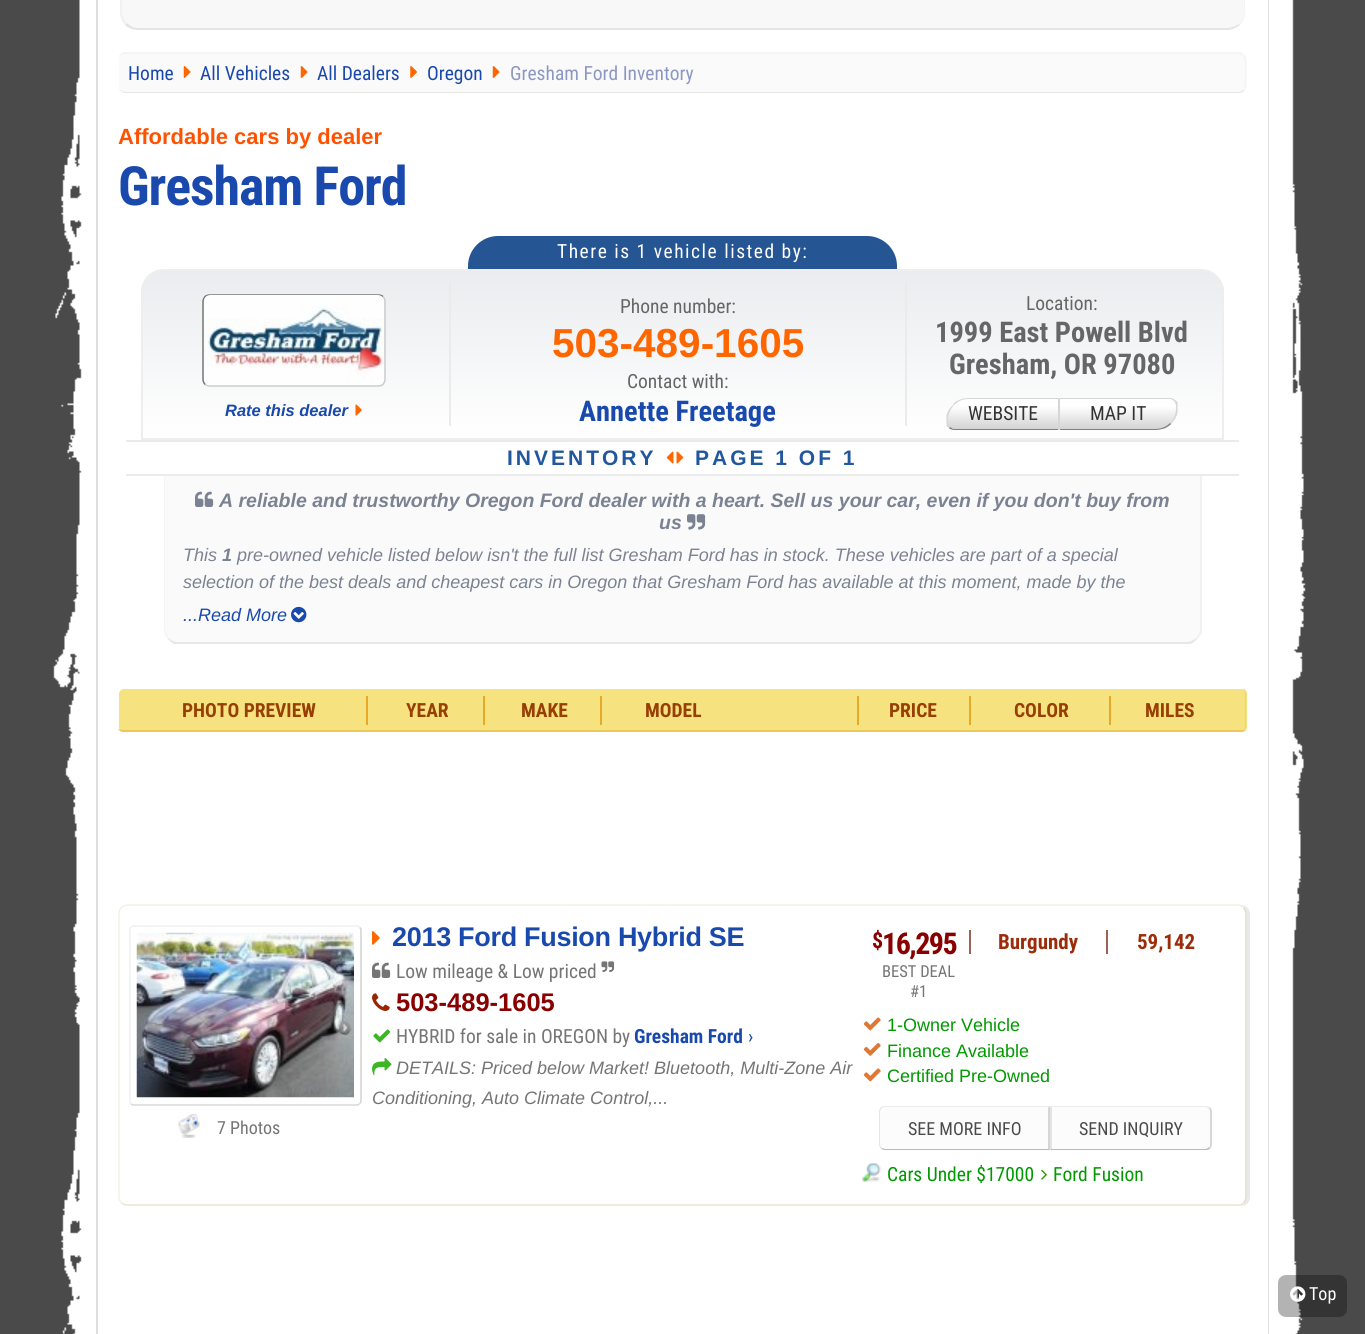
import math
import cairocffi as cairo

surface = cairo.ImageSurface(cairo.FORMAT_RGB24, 1365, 1334)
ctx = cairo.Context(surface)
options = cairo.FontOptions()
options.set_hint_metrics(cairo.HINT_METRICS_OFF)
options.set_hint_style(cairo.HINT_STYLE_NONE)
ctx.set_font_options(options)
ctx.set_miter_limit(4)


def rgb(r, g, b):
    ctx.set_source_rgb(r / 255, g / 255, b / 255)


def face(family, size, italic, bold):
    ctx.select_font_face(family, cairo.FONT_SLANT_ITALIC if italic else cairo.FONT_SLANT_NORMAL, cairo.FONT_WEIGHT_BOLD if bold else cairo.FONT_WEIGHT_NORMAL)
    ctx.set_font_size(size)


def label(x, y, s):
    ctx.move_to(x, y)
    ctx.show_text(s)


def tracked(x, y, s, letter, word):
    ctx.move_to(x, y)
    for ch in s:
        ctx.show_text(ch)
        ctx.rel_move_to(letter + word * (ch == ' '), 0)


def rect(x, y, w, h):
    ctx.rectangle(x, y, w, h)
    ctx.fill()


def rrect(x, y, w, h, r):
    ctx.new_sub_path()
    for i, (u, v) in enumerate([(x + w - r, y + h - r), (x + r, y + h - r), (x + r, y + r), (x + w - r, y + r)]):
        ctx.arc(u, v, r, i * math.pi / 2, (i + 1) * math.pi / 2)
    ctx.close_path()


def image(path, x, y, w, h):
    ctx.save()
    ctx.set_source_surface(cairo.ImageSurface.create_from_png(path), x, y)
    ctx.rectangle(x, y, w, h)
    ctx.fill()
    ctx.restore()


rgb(74, 74, 74)
ctx.paint()
image('image0.png', 53, 0, 1253, 1334)
rgb(223, 223, 223)
ctx.set_fill_rule(cairo.FILL_RULE_EVEN_ODD)
ctx.new_path()
ctx.move_to(96, -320)
ctx.line_to(1269, -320)
ctx.line_to(1269, 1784)
ctx.curve_to(1269, 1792, 1262, 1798, 1254, 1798)
ctx.line_to(111, 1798)
ctx.curve_to(103, 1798, 96, 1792, 96, 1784)
ctx.close_path()
ctx.move_to(98, -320)
ctx.line_to(1268, -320)
ctx.line_to(1268, 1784)
ctx.curve_to(1268, 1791, 1261, 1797, 1254, 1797)
ctx.line_to(111, 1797)
ctx.curve_to(104, 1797, 98, 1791, 98, 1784)
ctx.close_path()
ctx.fill()
rgb(248, 248, 248)
ctx.new_path()
ctx.move_to(120, -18)
ctx.line_to(1245, -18)
ctx.line_to(1245, 12)
ctx.curve_to(1245, 22, 1237, 30, 1227, 30)
ctx.line_to(138, 30)
ctx.curve_to(128, 30, 120, 22, 120, 12)
ctx.close_path()
ctx.fill()
rgb(244, 244, 244)
ctx.set_fill_rule(cairo.FILL_RULE_WINDING)
ctx.new_path()
ctx.move_to(1240, 25)
ctx.line_to(1239, 24)
ctx.curve_to(1242, 21, 1244, 17, 1244, 12)
ctx.line_to(1244, -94)
ctx.line_to(1245, -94)
ctx.line_to(1245, 12)
ctx.curve_to(1245, 17, 1243, 22, 1240, 25)
ctx.close_path()
ctx.fill()
rgb(228, 228, 228)
ctx.new_path()
ctx.move_to(138, 30)
ctx.line_to(1227, 30)
ctx.curve_to(1232, 30, 1236, 28, 1240, 25)
ctx.line_to(1239, 24)
ctx.curve_to(1236, 26, 1231, 28, 1227, 28)
ctx.line_to(138, 28)
ctx.curve_to(134, 28, 130, 26, 127, 23)
ctx.line_to(125, 25)
ctx.curve_to(128, 28, 133, 30, 138, 30)
ctx.close_path()
ctx.fill()
rgb(241, 241, 241)
ctx.new_path()
ctx.move_to(120, -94)
ctx.line_to(122, -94)
ctx.line_to(122, 12)
ctx.curve_to(122, 16, 124, 20, 127, 23)
ctx.line_to(125, 25)
ctx.curve_to(122, 22, 120, 17, 120, 12)
ctx.close_path()
ctx.fill()
rgb(250, 250, 250)
rrect(119, 53, 1128, 40, 8)
ctx.fill()
rgb(245, 245, 245)
ctx.new_path()
ctx.move_to(126, 54)
ctx.curve_to(123, 54, 120, 56, 118, 58)
ctx.curve_to(118, 56, 121, 53, 123, 52)
ctx.line_to(1241, 52)
ctx.line_to(1244, 55)
ctx.line_to(1243, 56)
ctx.curve_to(1242, 55, 1240, 54, 1239, 54)
ctx.close_path()
ctx.fill()
rgb(243, 243, 243)
ctx.new_path()
ctx.move_to(1243.5, 90)
ctx.curve_to(1244.5, 89, 1245, 87.5, 1245, 86)
ctx.line_to(1245, 60)
ctx.curve_to(1245, 58.5, 1244, 57, 1243, 56)
ctx.line_to(1244, 55)
ctx.curve_to(1245.5, 56, 1246, 58, 1246, 60)
ctx.line_to(1246, 86)
ctx.curve_to(1246, 88, 1245.5, 89.5, 1244, 90.5)
ctx.close_path()
ctx.fill()
rgb(231, 231, 231)
ctx.new_path()
ctx.move_to(118, 88)
ctx.curve_to(120, 90, 123, 92, 126, 92)
ctx.line_to(1239, 92)
ctx.curve_to(1241, 92, 1242, 91, 1243, 90)
ctx.line_to(1244, 91)
ctx.curve_to(1243, 92, 1241, 93, 1239, 93)
ctx.line_to(126, 93)
ctx.curve_to(123, 93, 120, 91, 118, 88)
ctx.close_path()
ctx.fill()
face('Roboto Condensed', 19.5, 0, 0)
rgb(26, 73, 173)
label(128, 80, 'Home')
image('image1.png', 183, 66, 8, 12)
label(200, 80, 'All Vehicles')
image('image1.png', 300, 66, 8, 12)
label(317, 80, 'All Dealers')
image('image2.png', 410, 66, 7, 12)
label(427, 80, 'Oregon')
image('image1.png', 492, 66, 8, 12)
rgb(141, 152, 194)
label(510, 80, 'Gresham Ford Inventory')
face('Liberation Sans', 22, 0, 1)
rgb(255, 82, 0)
label(118, 144, 'Affordable cars by dealer')
face('Roboto Condensed', 54, 0, 1)
rgb(26, 73, 173)
tracked(118, 205, 'Gresham Ford', -1.1, 0)
rgb(37, 85, 146)
ctx.new_path()
ctx.move_to(498, 236)
ctx.line_to(867, 236)
ctx.curve_to(883.5, 236, 897, 249.5, 897, 266)
ctx.line_to(897, 269)
ctx.line_to(468, 269)
ctx.line_to(468, 266)
ctx.curve_to(468, 249.5, 481.5, 236, 498, 236)
ctx.close_path()
ctx.fill()
face('Roboto Condensed', 19.5, 0, 0)
rgb(255, 255, 255)
tracked(557, 258, 'There is 1 vehicle listed by:', 1.5, 0)
ctx.save()
ctx.new_path()
ctx.move_to(164, 269)
ctx.line_to(1201, 269)
ctx.curve_to(1213.5, 269, 1224, 279.5, 1224, 292)
ctx.line_to(1224, 440)
ctx.line_to(141, 440)
ctx.line_to(141, 292)
ctx.curve_to(141, 279.5, 151.5, 269, 164, 269)
ctx.close_path()
ctx.clip()
gradient = cairo.LinearGradient(683, 270, 683, 438)
gradient.add_color_stop_rgba(0, 0.918, 0.925, 0.937, 1)
gradient.add_color_stop_rgba(1, 1, 1, 1, 1)
ctx.set_source(gradient)
rect(141, 270, 1083, 168)
ctx.restore()
ctx.new_path()
ctx.move_to(164, 270)
ctx.line_to(1201, 270)
ctx.curve_to(1213, 270, 1223, 280, 1223, 292)
ctx.line_to(1223, 439)
ctx.line_to(142, 439)
ctx.line_to(142, 292)
ctx.curve_to(142, 280, 152, 270, 164, 270)
ctx.close_path()
rgb(238, 238, 238)
ctx.stroke()
ctx.new_path()
ctx.move_to(383, 296.5)
ctx.curve_to(384, 298, 385, 299.5, 385, 301.5)
ctx.line_to(385, 379.5)
ctx.curve_to(385, 381.5, 384, 383, 383, 384.5)
ctx.curve_to(381.5, 385.5, 380, 386, 378, 386)
ctx.line_to(210, 386)
ctx.curve_to(208, 386, 206.5, 385.5, 205, 384.5)
rgb(204, 204, 204)
ctx.set_line_width(1.5)
ctx.stroke()
ctx.new_path()
ctx.move_to(205, 384.5)
ctx.curve_to(204, 383, 203, 381.5, 203, 379.5)
ctx.line_to(203, 301.5)
ctx.curve_to(203, 299.5, 204, 298, 205, 296.5)
ctx.curve_to(206.5, 295.5, 208, 295, 210, 295)
ctx.line_to(378, 295)
ctx.curve_to(380, 295, 381.5, 295.5, 383, 296.5)
rgb(117, 117, 117)
ctx.stroke()
image('image3.png', 204, 295, 180, 90)
face('Liberation Sans', 16.5, 1, 1)
rgb(26, 73, 173)
label(225, 416, 'Rate this dealer')
image('image4.png', 355, 404, 7, 12)
rgb(235, 235, 235)
rect(905, 282, 2, 144)
rect(449, 282, 2, 144)
face('Roboto Condensed', 19.5, 0, 0)
rgb(102, 102, 102)
label(620, 313, 'Phone number:')
face('Liberation Sans', 40.5, 0, 1)
rgb(255, 102, 0)
label(552, 357, '503-489-1605')
face('Roboto Condensed', 19.5, 0, 0)
rgb(102, 102, 102)
label(627, 388, 'Contact with:')
face('Roboto Condensed', 28.5, 0, 1)
rgb(26, 73, 173)
label(579, 421, 'Annette Freetage')
face('Roboto Condensed', 19.5, 0, 0)
rgb(102, 102, 102)
label(1026, 310, 'Location:')
face('Roboto Condensed', 28.5, 0, 1)
label(935, 342, '1999 East Powell Blvd')
label(949, 374, 'Gresham, OR 97080')
ctx.save()
ctx.new_path()
ctx.move_to(970, 398)
ctx.line_to(1059, 398)
ctx.line_to(1059, 431)
ctx.line_to(955, 431)
ctx.curve_to(950.5, 431, 947, 427.5, 947, 423)
ctx.line_to(947, 421)
ctx.curve_to(947, 408.5, 957.5, 398, 970, 398)
ctx.close_path()
ctx.clip()
gradient = cairo.LinearGradient(1003, 399, 1003, 429)
gradient.add_color_stop_rgba(0.24, 1, 1, 1, 1)
gradient.add_color_stop_rgba(1, 0.827, 0.827, 0.827, 1)
ctx.set_source(gradient)
rect(947, 399, 111, 30)
ctx.restore()
face('Roboto Condensed', 19.5, 0, 0)
rgb(51, 51, 51)
label(968, 420, 'WEBSITE')
rgb(214, 214, 214)
ctx.new_path()
ctx.move_to(969, 398)
ctx.curve_to(963, 398, 957, 400, 953, 404)
ctx.line_to(954, 405)
ctx.curve_to(958, 401, 963, 399, 969, 399)
ctx.line_to(1058, 399)
ctx.line_to(1058, 398)
ctx.close_path()
ctx.fill()
ctx.new_path()
ctx.move_to(1059, 430)
ctx.line_to(1059, 398)
ctx.line_to(1058.5, 398)
ctx.line_to(1057.5, 399)
ctx.line_to(1058, 399)
ctx.line_to(1058, 429)
ctx.line_to(1057.5, 429)
ctx.line_to(1058.5, 430)
ctx.close_path()
ctx.fill()
rgb(127, 127, 127)
ctx.new_path()
ctx.move_to(1058, 430)
ctx.line_to(954, 430)
ctx.curve_to(952, 430, 950, 429, 949, 428)
ctx.line_to(950, 427)
ctx.line_to(953, 429)
ctx.line_to(1058, 429)
ctx.close_path()
ctx.fill()
rgb(214, 214, 214)
ctx.new_path()
ctx.move_to(946.5, 415.5)
ctx.curve_to(947.5, 411, 950, 407.5, 953.5, 404.5)
ctx.line_to(954, 405)
ctx.curve_to(949.5, 410, 947, 417, 948, 424)
ctx.curve_to(948.5, 425.5, 949, 426.5, 950, 427)
ctx.line_to(949, 428)
ctx.curve_to(948, 427.5, 947, 426.5, 946.5, 425.5)
ctx.close_path()
ctx.fill()
ctx.save()
ctx.new_path()
ctx.move_to(1059, 398)
ctx.line_to(1170, 398)
ctx.curve_to(1174.5, 398, 1178, 401.5, 1178, 406)
ctx.line_to(1178, 408)
ctx.curve_to(1178, 420.5, 1167.5, 431, 1155, 431)
ctx.line_to(1059, 431)
ctx.close_path()
ctx.clip()
gradient = cairo.LinearGradient(1118, 399, 1118, 429)
gradient.add_color_stop_rgba(0.24, 1, 1, 1, 1)
gradient.add_color_stop_rgba(1, 0.827, 0.827, 0.827, 1)
ctx.set_source(gradient)
rect(1060, 399, 118, 30)
ctx.restore()
rgb(51, 51, 51)
label(1090, 420, 'MAP IT')
rgb(214, 214, 214)
ctx.new_path()
ctx.move_to(1175, 400)
ctx.curve_to(1174, 399, 1172, 398, 1170, 398)
ctx.line_to(1060, 398)
ctx.line_to(1060, 399)
ctx.line_to(1171, 399)
ctx.line_to(1174, 401)
ctx.close_path()
ctx.fill()
ctx.new_path()
ctx.move_to(1175, 400)
ctx.curve_to(1176, 400.5, 1177, 401.5, 1177.5, 402.5)
ctx.line_to(1177.5, 412.5)
ctx.curve_to(1176.5, 417, 1174, 420.5, 1170.5, 423.5)
ctx.line_to(1170, 423)
ctx.curve_to(1172, 421, 1173.5, 419, 1174.5, 416.5)
ctx.curve_to(1176, 412.5, 1177.5, 404.5, 1174, 401)
ctx.close_path()
ctx.fill()
rgb(127, 127, 127)
ctx.new_path()
ctx.move_to(1171, 424)
ctx.curve_to(1167, 428, 1161, 430, 1155, 430)
ctx.line_to(1060, 430)
ctx.line_to(1060, 429)
ctx.line_to(1155, 429)
ctx.curve_to(1161, 429, 1166, 427, 1170, 423)
ctx.close_path()
ctx.fill()
rgb(214, 214, 214)
ctx.new_path()
ctx.move_to(1060, 399)
ctx.line_to(1060, 429)
ctx.line_to(1060.5, 429)
ctx.line_to(1059.5, 430)
ctx.line_to(1059, 430)
ctx.line_to(1059, 398)
ctx.line_to(1059.5, 398)
ctx.line_to(1060.5, 399)
ctx.close_path()
ctx.fill()
rgb(235, 235, 235)
rect(126, 440, 1113, 2)
rect(126, 474, 1113, 2)
face('Liberation Sans', 21, 0, 1)
rgb(32, 87, 158)
tracked(507, 465, 'INVENTORY', 3, 0)
image('image5.png', 666, 451, 8, 13)
image('image6.png', 676, 451, 8, 13)
tracked(695, 465, 'PAGE 1 OF 1', 3, 0)
rgb(250, 250, 250)
ctx.new_path()
ctx.move_to(164, 476)
ctx.line_to(1202, 476)
ctx.line_to(1202, 629)
ctx.curve_to(1202, 637.5, 1195.5, 644, 1187, 644)
ctx.line_to(179, 644)
ctx.curve_to(170.5, 644, 164, 637.5, 164, 629)
ctx.close_path()
ctx.fill()
rgb(241, 241, 241)
ctx.new_path()
ctx.move_to(1197, 639)
ctx.line_to(1196, 638)
ctx.curve_to(1198, 636, 1200, 632, 1200, 628)
ctx.line_to(1200, 476)
ctx.line_to(1202, 476)
ctx.line_to(1202, 632)
ctx.curve_to(1201, 635, 1199, 637, 1197, 639)
ctx.close_path()
ctx.fill()
rgb(231, 231, 231)
ctx.new_path()
ctx.move_to(174, 644)
ctx.curve_to(172, 643, 170, 641, 168, 639)
ctx.line_to(169, 638)
ctx.curve_to(171, 641, 175, 642, 178, 642)
ctx.line_to(1186, 642)
ctx.curve_to(1190, 642, 1194, 640, 1196, 638)
ctx.line_to(1197, 639)
ctx.curve_to(1195, 641, 1193, 643, 1190, 644)
ctx.close_path()
ctx.fill()
rgb(245, 245, 245)
ctx.new_path()
ctx.move_to(164, 476)
ctx.line_to(165, 476)
ctx.line_to(165, 628)
ctx.curve_to(165, 632, 167, 636, 169, 638)
ctx.line_to(168, 639)
ctx.curve_to(165, 636, 164, 632, 164, 628)
ctx.close_path()
ctx.fill()
image('image7.png', 195, 491, 19, 16)
face('Liberation Sans', 19.5, 1, 1)
rgb(123, 131, 146)
label(219, 507, 'A reliable and trustworthy Oregon Ford dealer with a heart. Sell us your car, even if you don\'t buy from')
label(659, 529, 'us')
image('image8.png', 687, 514, 19, 16)
face('Liberation Sans', 18, 1, 0)
label(183, 561, 'This')
face('Liberation Sans', 18, 1, 1)
label(222, 561, '1')
face('Liberation Sans', 18, 1, 0)
label(237, 561, 'pre-owned vehicle listed below isn\'t the full list Gresham Ford has in stock. These vehicles are part of a special')
label(183, 588, 'selection of the best deals and cheapest cars in Oregon that Gresham Ford has available at this moment, made by the')
rgb(26, 73, 173)
label(183, 621, '...Read More')
image('image9.png', 291, 606, 16, 17)
rgb(247, 226, 128)
rrect(119, 689, 1128, 43, 5)
ctx.fill()
rgb(248, 200, 129)
ctx.new_path()
ctx.move_to(1244, 730)
ctx.line_to(1245, 728)
ctx.line_to(1245, 693)
ctx.curve_to(1245, 692, 1244, 689, 1243, 688)
ctx.curve_to(1245, 689, 1246, 692, 1246, 693)
ctx.line_to(1246, 728)
ctx.line_to(1245, 730)
ctx.close_path()
ctx.fill()
rgb(237, 199, 87)
ctx.new_path()
ctx.move_to(118, 729)
ctx.line_to(123, 730)
ctx.line_to(1242, 730)
ctx.line_to(1244, 730)
ctx.line_to(1245, 730)
ctx.curve_to(1244, 731, 1243, 732, 1242, 732)
ctx.line_to(123, 732)
ctx.curve_to(122, 732, 119, 731, 118, 729)
ctx.close_path()
ctx.fill()
rgb(230, 170, 42)
rect(366, 696, 2, 29)
face('Roboto Condensed', 19.5, 0, 1)
rgb(151, 63, 5)
label(182, 717, 'PHOTO PREVIEW')
rgb(230, 170, 42)
rect(483, 696, 2, 29)
rgb(151, 63, 5)
label(406, 717, 'YEAR')
rgb(230, 170, 42)
rect(600, 696, 2, 29)
rgb(151, 63, 5)
label(521, 717, 'MAKE')
label(645, 717, 'MODEL')
rgb(230, 170, 42)
rect(969, 696, 2, 29)
rect(857, 696, 2, 29)
rgb(151, 63, 5)
label(889, 717, 'PRICE')
rgb(230, 170, 42)
rect(1109, 696, 2, 29)
rgb(151, 63, 5)
label(1014, 717, 'COLOR')
label(1145, 717, 'MILES')
rgb(233, 233, 233)
ctx.new_path()
ctx.move_to(1238, 1206)
ctx.line_to(1241, 1206)
ctx.curve_to(1246, 1206, 1250, 1202, 1250, 1197)
ctx.line_to(1250, 914)
ctx.curve_to(1250, 909, 1246, 905, 1241, 905)
ctx.line_to(1240, 905)
ctx.curve_to(1244, 906, 1246, 910, 1246, 914)
ctx.line_to(1246, 1197)
ctx.curve_to(1246, 1202, 1242, 1206, 1238, 1206)
ctx.close_path()
ctx.fill()
rgb(255, 255, 255)
rrect(119, 905, 1128, 301, 9)
ctx.fill()
ctx.new_path()
ctx.move_to(1243.5, 907.5)
ctx.curve_to(1245, 909, 1246, 911.5, 1246, 913.5)
ctx.line_to(1246, 1197)
ctx.curve_to(1246, 1199, 1245, 1201.5, 1243.5, 1203)
rgb(222, 219, 206)
ctx.stroke()
ctx.new_path()
ctx.move_to(1243.5, 1203)
ctx.curve_to(1242, 1204.5, 1239.5, 1205, 1237.5, 1205)
ctx.line_to(127.5, 1205)
ctx.curve_to(125.5, 1205, 123, 1204.5, 121.5, 1203)
rgb(235, 228, 209)
ctx.stroke()
ctx.new_path()
ctx.move_to(121.5, 1203)
ctx.curve_to(120, 1201.5, 119, 1199, 119, 1197)
ctx.line_to(119, 913.5)
ctx.curve_to(119, 911.5, 120, 909, 121.5, 907.5)
ctx.curve_to(123, 906, 125.5, 905, 127.5, 905)
ctx.line_to(1237.5, 905)
ctx.curve_to(1239.5, 905, 1242, 906, 1243.5, 907.5)
rgb(243, 241, 226)
ctx.stroke()
ctx.new_path()
ctx.move_to(359.5, 927.5)
ctx.curve_to(360.5, 928, 361, 929, 361, 930)
ctx.line_to(361, 1101)
ctx.curve_to(361, 1102, 360.5, 1103, 359.5, 1103.5)
rgb(210, 210, 210)
ctx.stroke()
ctx.new_path()
ctx.move_to(359.5, 1103.5)
ctx.curve_to(359, 1104.5, 358, 1105, 357, 1105)
ctx.line_to(133.5, 1105)
ctx.curve_to(132.5, 1105, 131.5, 1104.5, 131, 1103.5)
rgb(215, 215, 215)
ctx.stroke()
ctx.new_path()
ctx.move_to(131, 1103.5)
ctx.curve_to(130, 1103, 130, 1102, 130, 1101)
ctx.line_to(130, 930)
ctx.curve_to(130, 929, 130, 928, 131, 927.5)
ctx.curve_to(131.5, 926.5, 132.5, 926, 133.5, 926)
ctx.line_to(357, 926)
ctx.curve_to(358, 926, 359, 926.5, 359.5, 927.5)
rgb(240, 240, 240)
ctx.stroke()
image('image10.png', 136, 932, 218, 166)
image('image11.png', 178, 1114, 22, 24)
face('Roboto Condensed', 18, 0, 0)
rgb(117, 117, 117)
label(217, 1134, '7 Photos')
image('image12.png', 372, 931, 8, 14)
face('Liberation Sans', 27, 0, 1)
rgb(26, 73, 173)
tracked(392, 946, '2013 Ford Fusion Hybrid SE', -0.3, 0)
image('image13.png', 372, 962, 19, 16)
face('Roboto Condensed', 19.5, 0, 0)
rgb(117, 117, 117)
label(396, 978, 'Low mileage & Low priced')
image('image14.png', 601, 961, 14, 11)
image('image15.png', 372, 993, 18, 18)
face('Liberation Sans', 25.5, 0, 1)
rgb(136, 0, 0)
label(396, 1011, '503-489-1605')
image('image16.png', 373, 1029, 18, 14)
face('Roboto Condensed', 19.5, 0, 0)
rgb(117, 117, 117)
label(396, 1043, 'HYBRID for sale in OREGON by')
face('Roboto Condensed', 19.5, 0, 1)
rgb(26, 73, 173)
label(634, 1043, 'Gresham Ford')
face('Roboto Condensed', 19.5, 0, 0)
label(748, 1043, '›')
image('image17.png', 372, 1058, 20, 18)
face('Liberation Sans', 18, 1, 0)
rgb(117, 117, 117)
label(396, 1074, 'DETAILS: Priced below Market! Bluetooth, Multi-Zone Air')
label(372, 1104, 'Conditioning, Auto Climate Control,...')
face('Roboto Condensed', 22, 0, 1)
rgb(136, 0, 0)
tracked(872, 948, '$', -1.5, 0)
face('Roboto Condensed', 30, 0, 1)
tracked(882, 954, '16,295', -1.5, 0)
face('Roboto Condensed', 16.5, 0, 0)
rgb(117, 117, 117)
label(882, 977, 'BEST DEAL')
label(910, 997, '#1')
rgb(153, 100, 85)
rect(1106, 930, 2, 24)
rect(969, 930, 2, 24)
face('Roboto Condensed', 21, 0, 1)
rgb(155, 45, 10)
label(998, 949, 'Burgundy')
label(1137, 949, '59,142')
image('image18.png', 863, 1017, 18, 14)
face('Liberation Sans', 18, 0, 0)
rgb(0, 153, 0)
label(887, 1031, '1-Owner Vehicle')
image('image19.png', 863, 1042, 18, 14)
label(887, 1057, 'Finance Available')
image('image18.png', 863, 1068, 18, 14)
label(887, 1082, 'Certified Pre-Owned')
rgb(252, 252, 252)
ctx.new_path()
ctx.move_to(885, 1106)
ctx.line_to(1050, 1106)
ctx.line_to(1050, 1151)
ctx.line_to(885, 1151)
ctx.curve_to(881.5, 1151, 879, 1148.5, 879, 1145)
ctx.line_to(879, 1112)
ctx.curve_to(879, 1108.5, 881.5, 1106, 885, 1106)
ctx.close_path()
ctx.fill()
rgb(236, 236, 236)
ctx.new_path()
ctx.move_to(885, 1106)
ctx.curve_to(884, 1106, 882, 1106, 881, 1107)
ctx.line_to(882, 1108)
ctx.line_to(885, 1107)
ctx.line_to(1048, 1107)
ctx.line_to(1048, 1108)
ctx.line_to(1050, 1106)
ctx.close_path()
ctx.fill()
rgb(214, 214, 214)
ctx.new_path()
ctx.move_to(1050, 1150)
ctx.line_to(1050, 1106)
ctx.line_to(1048, 1108)
ctx.line_to(1048, 1148)
ctx.close_path()
ctx.fill()
rgb(188, 188, 188)
ctx.new_path()
ctx.move_to(1050, 1150)
ctx.line_to(884, 1150)
ctx.line_to(881, 1149)
ctx.line_to(882, 1148)
ctx.line_to(885, 1149)
ctx.line_to(1048, 1149)
ctx.line_to(1048, 1148)
ctx.close_path()
ctx.fill()
rgb(228, 228, 228)
ctx.new_path()
ctx.move_to(879, 1112)
ctx.line_to(879, 1144)
ctx.curve_to(879, 1146, 880, 1148, 881, 1149)
ctx.line_to(882, 1148)
ctx.curve_to(881, 1147, 880, 1146, 880, 1144)
ctx.line_to(880, 1112)
ctx.curve_to(880, 1110, 881, 1109, 882, 1108)
ctx.line_to(881, 1107)
ctx.curve_to(880, 1108, 879, 1110, 879, 1112)
ctx.close_path()
ctx.fill()
face('Roboto Condensed', 18, 0, 0)
rgb(75, 75, 75)
label(908, 1135, 'SEE MORE INFO')
rgb(252, 252, 252)
ctx.new_path()
ctx.move_to(1050, 1106)
ctx.line_to(1206, 1106)
ctx.curve_to(1209.5, 1106, 1212, 1108.5, 1212, 1112)
ctx.line_to(1212, 1145)
ctx.curve_to(1212, 1148.5, 1209.5, 1151, 1206, 1151)
ctx.line_to(1050, 1151)
ctx.close_path()
ctx.fill()
rgb(236, 236, 236)
ctx.new_path()
ctx.move_to(1052, 1107)
ctx.line_to(1206, 1107)
ctx.line_to(1209, 1109)
ctx.line_to(1210, 1107)
ctx.line_to(1207, 1106)
ctx.line_to(1050, 1106)
ctx.line_to(1052, 1108)
ctx.close_path()
ctx.fill()
rgb(214, 214, 214)
ctx.new_path()
ctx.move_to(1210, 1107)
ctx.curve_to(1211, 1108, 1212, 1110, 1212, 1112)
ctx.line_to(1212, 1144)
ctx.curve_to(1212, 1146, 1211, 1148, 1210, 1149)
ctx.line_to(1209, 1147)
ctx.curve_to(1210, 1147, 1210, 1145, 1210, 1144)
ctx.line_to(1210, 1112)
ctx.curve_to(1210, 1111, 1210, 1109, 1209, 1109)
ctx.close_path()
ctx.fill()
rgb(188, 188, 188)
ctx.new_path()
ctx.move_to(1210, 1149)
ctx.line_to(1207, 1150)
ctx.line_to(1050, 1150)
ctx.line_to(1052, 1148)
ctx.line_to(1052, 1149)
ctx.line_to(1206, 1149)
ctx.line_to(1209, 1147)
ctx.close_path()
ctx.fill()
rgb(228, 228, 228)
ctx.new_path()
ctx.move_to(1050, 1106)
ctx.line_to(1052, 1108)
ctx.line_to(1052, 1148)
ctx.line_to(1050, 1150)
ctx.close_path()
ctx.fill()
rgb(75, 75, 75)
label(1079, 1135, 'SEND INQUIRY')
image('image20.png', 862, 1163, 19, 19)
face('Roboto Condensed', 19.5, 0, 0)
rgb(0, 153, 0)
label(887, 1181, 'Cars Under $17000')
image('image21.png', 1041, 1169, 6, 11)
label(1053, 1181, 'Ford Fusion')
ctx.set_source_rgba(0, 0, 0, 0.3)
rrect(1278, 1275, 69, 42, 8)
ctx.fill()
image('image22.png', 1290, 1286, 16, 16)
face('Roboto Condensed', 18, 0, 0)
rgb(255, 255, 255)
label(1309, 1300, 'Top')
surface.write_to_png('render.png')
